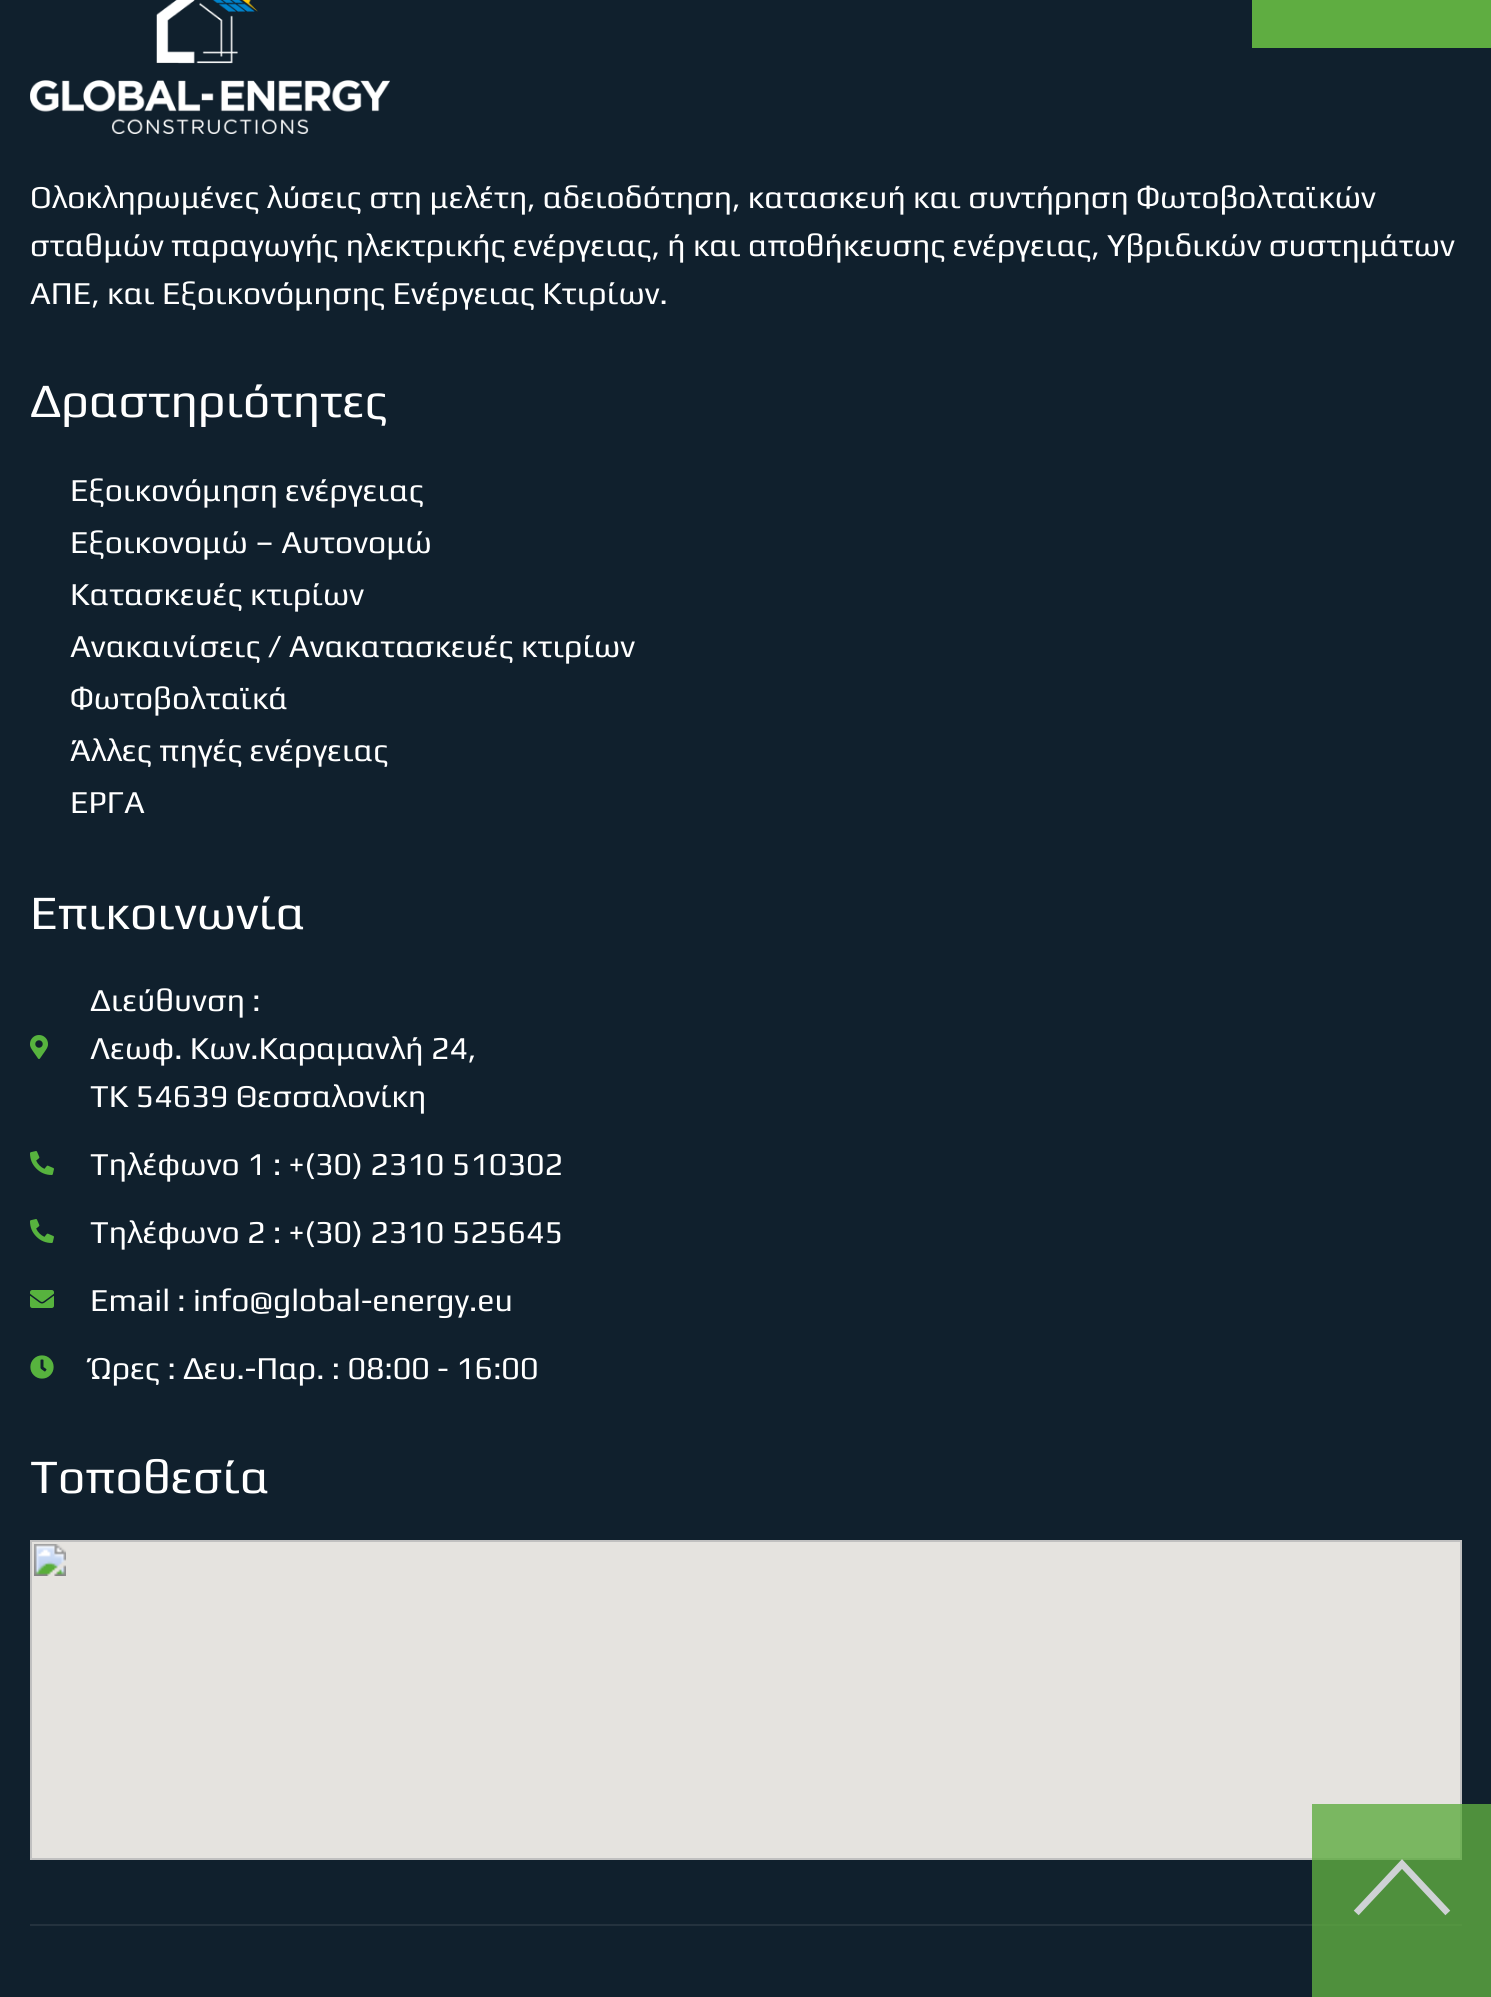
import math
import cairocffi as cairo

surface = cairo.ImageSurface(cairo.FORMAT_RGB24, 1491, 1997)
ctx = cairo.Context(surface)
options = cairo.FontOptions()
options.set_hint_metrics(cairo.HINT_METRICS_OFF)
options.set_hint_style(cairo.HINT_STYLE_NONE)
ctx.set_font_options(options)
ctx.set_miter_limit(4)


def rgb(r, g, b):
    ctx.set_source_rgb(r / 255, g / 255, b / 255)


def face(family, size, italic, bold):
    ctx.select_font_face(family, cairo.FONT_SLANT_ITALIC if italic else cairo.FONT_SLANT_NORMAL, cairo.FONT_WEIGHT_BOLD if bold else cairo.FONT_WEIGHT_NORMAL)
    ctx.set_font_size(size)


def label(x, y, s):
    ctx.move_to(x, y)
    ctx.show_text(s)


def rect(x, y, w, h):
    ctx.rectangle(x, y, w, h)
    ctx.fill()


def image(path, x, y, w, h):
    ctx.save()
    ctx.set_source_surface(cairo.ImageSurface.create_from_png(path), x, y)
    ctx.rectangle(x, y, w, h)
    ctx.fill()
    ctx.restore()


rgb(16, 32, 45)
ctx.paint()
rgb(95, 173, 65)
rect(1252, 0, 239, 48)
image('image0.png', 30, 0, 360, 134)
face('Play', 32, 0, 0)
rgb(255, 255, 255)
label(30, 208, 'Ολοκληρωμένες λύσεις στη μελέτη, αδειοδότηση, κατασκευή και συντήρηση Φωτοβολταϊκών')
label(30, 256, 'σταθμών παραγωγής ηλεκτρικής ενέργειας, ή και αποθήκευσης ενέργειας, Υβριδικών συστημάτων')
label(30, 304, 'ΑΠΕ, και Εξοικονόμησης Ενέργειας Κτιρίων.')
face('Play', 48, 0, 0)
label(30, 417, 'Δραστηριότητες')
face('Play', 32, 0, 0)
label(70, 501, 'Εξοικονόμηση ενέργειας')
label(70, 553, 'Εξοικονομώ – Αυτονομώ')
label(70, 605, 'Κατασκευές κτιρίων')
label(70, 657, 'Ανακαινίσεις / Ανακατασκευές κτιρίων')
label(70, 709, 'Φωτοβολταϊκά')
label(70, 761, 'Άλλες πηγές ενέργειας')
label(70, 813, 'ΕΡΓΑ')
face('Play', 48, 0, 0)
label(30, 929, 'Επικοινωνία')
image('image1.png', 30, 1035, 18, 24)
face('Play', 32, 0, 0)
label(90, 1011, 'Διεύθυνση :')
label(90, 1059, 'Λεωφ. Κων.Καραμανλή 24,')
label(90, 1107, 'ΤΚ 54639 Θεσσαλονίκη')
image('image2.png', 30, 1151, 24, 24)
label(90, 1175, 'Τηλέφωνο 1 : +(30) 2310 510302')
image('image2.png', 30, 1219, 24, 24)
label(90, 1243, 'Τηλέφωνο 2 : +(30) 2310 525645')
image('image3.png', 30, 1290, 24, 18)
label(90, 1311, 'Email : info@global-energy.eu')
image('image4.png', 30, 1355, 24, 24)
label(90, 1379, 'Ώρες : Δευ.-Παρ. : 08:00 - 16:00')
face('Play', 48, 0, 0)
label(30, 1493, 'Τοποθεσία')
image('image5.png', 30, 1540, 1432, 320)
rgb(36, 50, 62)
rect(30, 1924, 1432, 2)
ctx.set_source_rgba(0.373, 0.678, 0.255, 0.8)
rect(1312, 1804, 179, 193)
ctx.new_path()
ctx.move_to(1358.5, 1910.5)
ctx.line_to(1402, 1864)
ctx.line_to(1445.5, 1910.5)
rgb(207, 210, 213)
ctx.set_line_width(6.7)
ctx.set_line_cap(cairo.LINE_CAP_SQUARE)
ctx.stroke()
surface.write_to_png('render.png')
